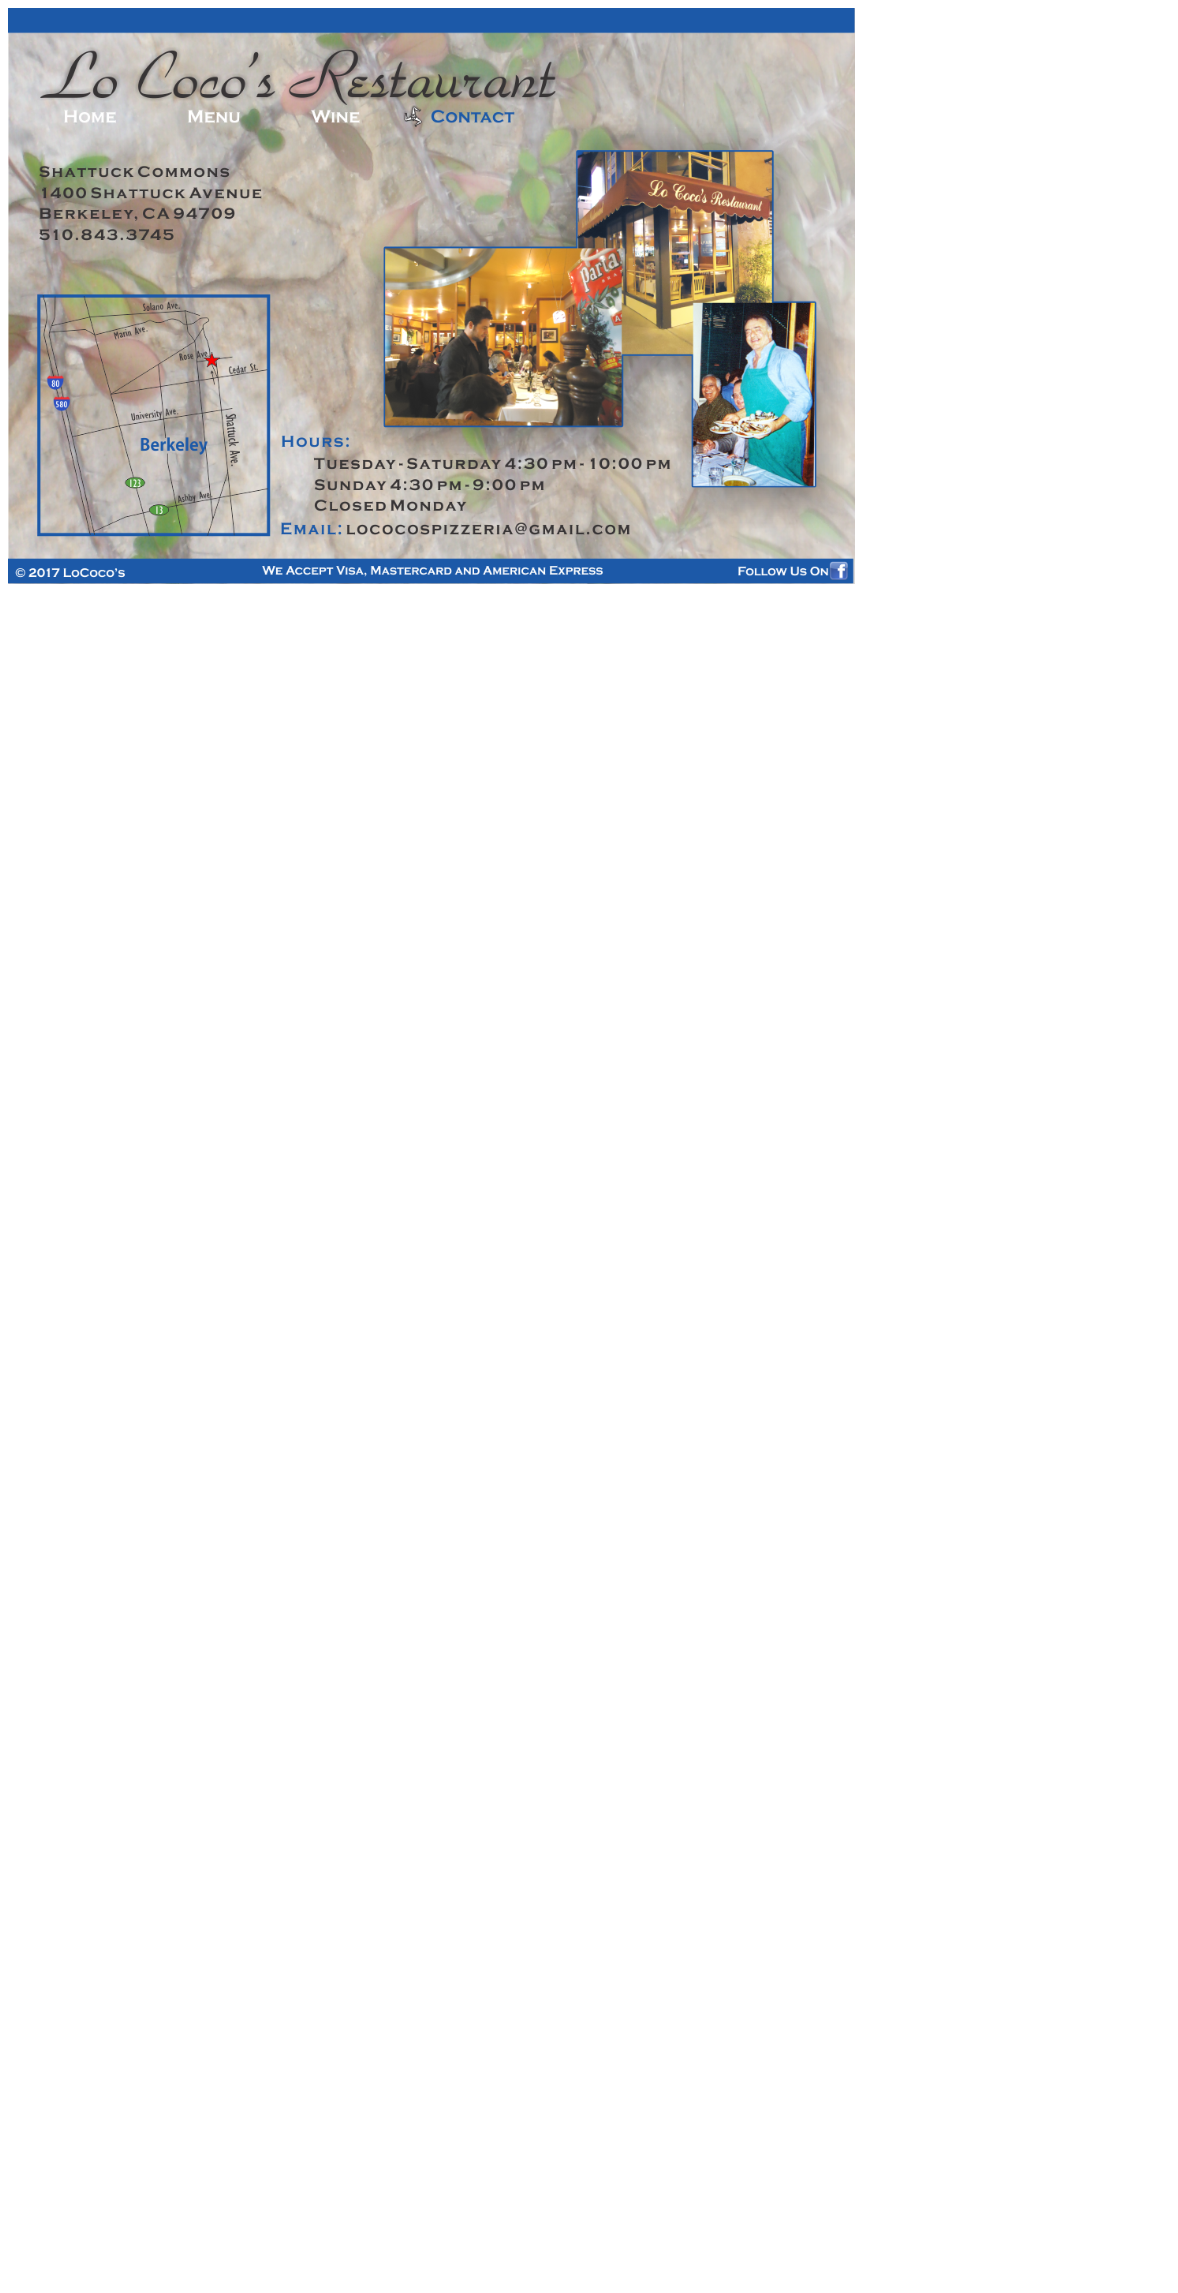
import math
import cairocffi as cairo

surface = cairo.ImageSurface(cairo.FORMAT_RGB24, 1178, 2293)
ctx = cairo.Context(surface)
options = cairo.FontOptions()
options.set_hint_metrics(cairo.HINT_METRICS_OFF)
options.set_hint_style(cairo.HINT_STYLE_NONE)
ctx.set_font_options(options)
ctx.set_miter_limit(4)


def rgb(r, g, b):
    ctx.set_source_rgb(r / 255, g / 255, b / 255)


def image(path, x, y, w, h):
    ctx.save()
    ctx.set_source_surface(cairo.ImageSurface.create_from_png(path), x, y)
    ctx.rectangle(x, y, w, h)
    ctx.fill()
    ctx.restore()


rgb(255, 255, 255)
ctx.paint()
image('image0.png', 8, 8, 847, 576)
surface.write_to_png('render.png')
